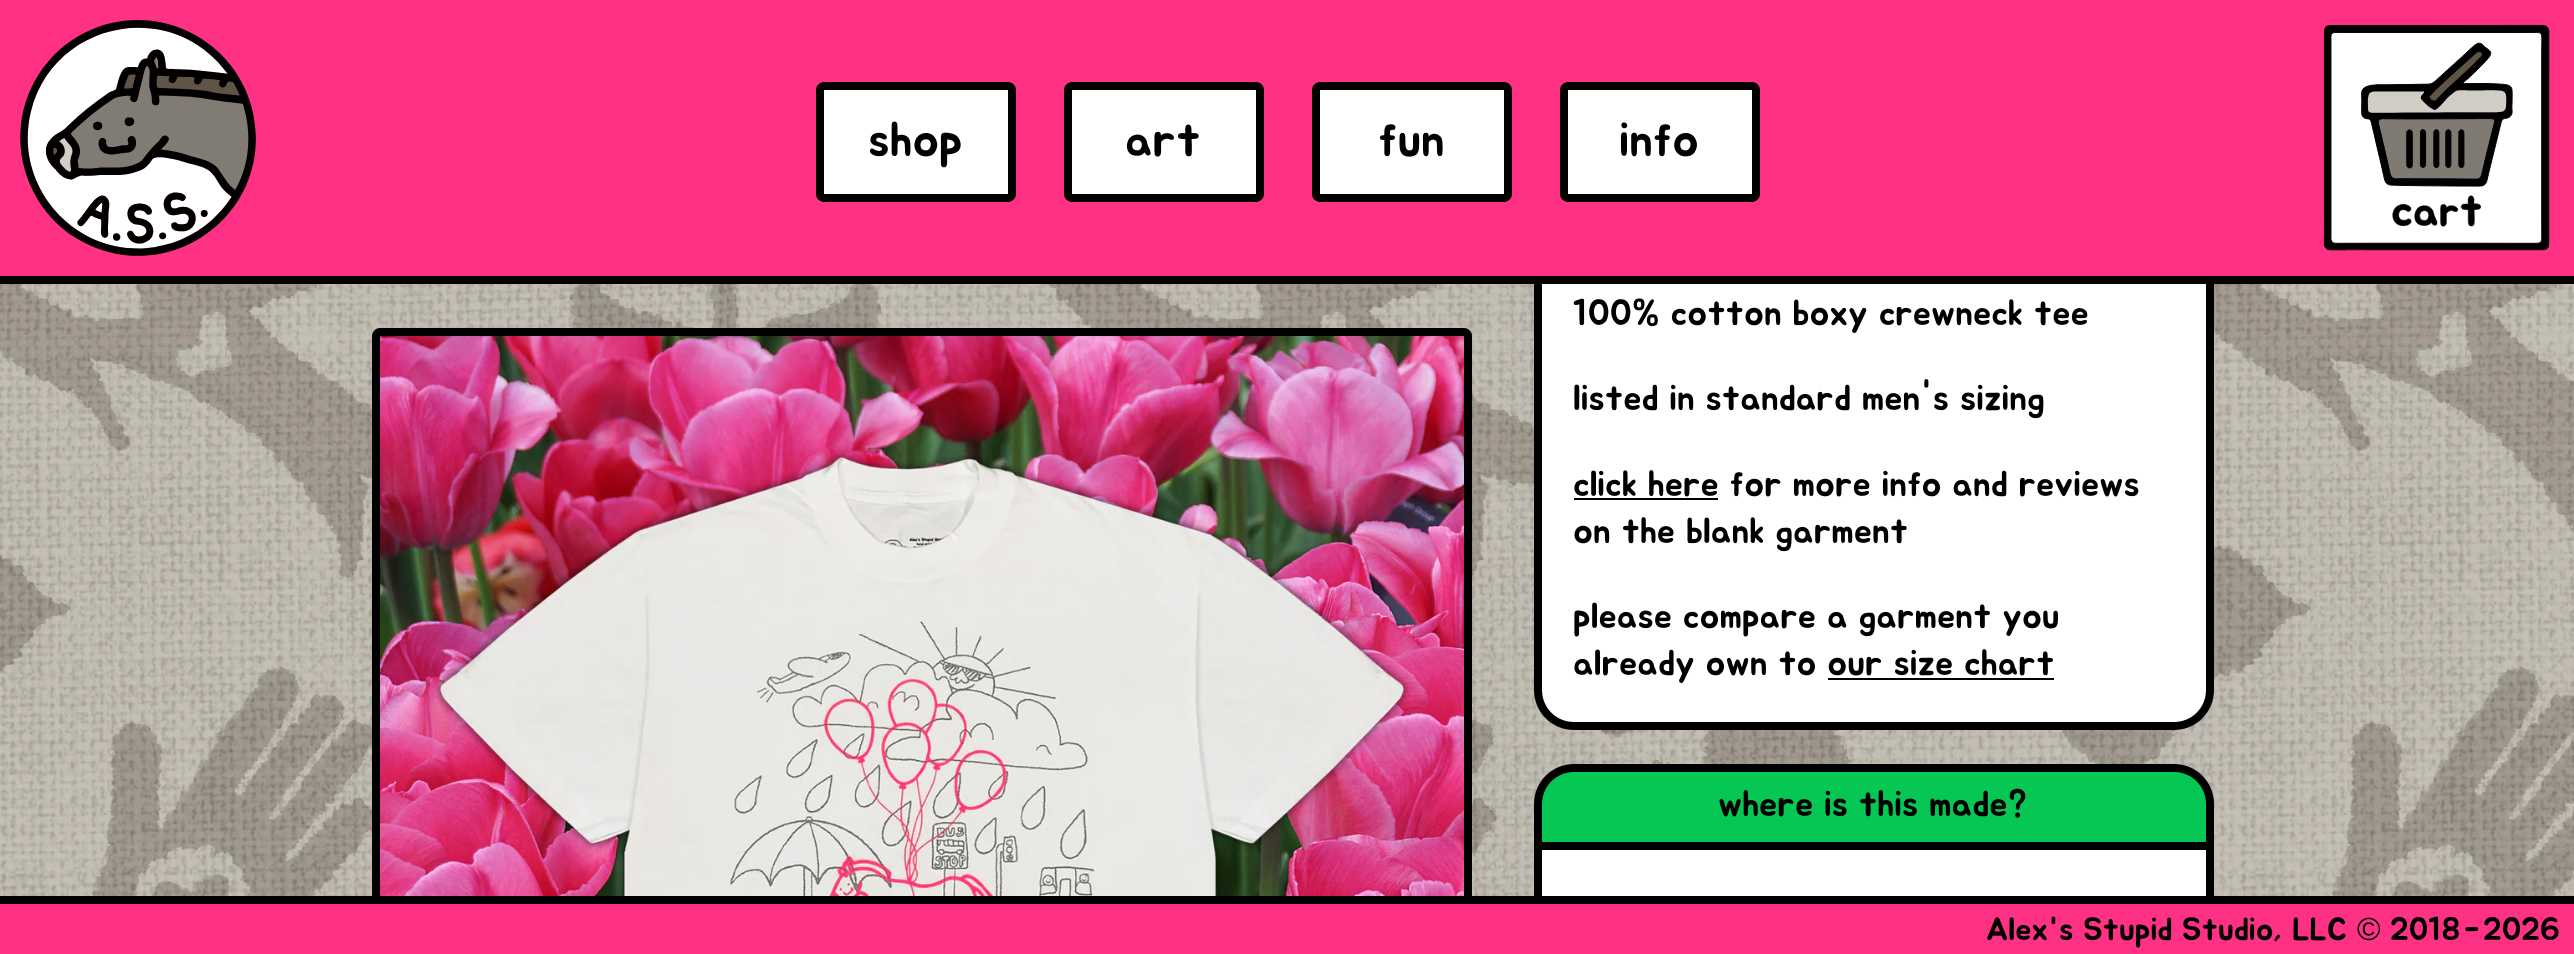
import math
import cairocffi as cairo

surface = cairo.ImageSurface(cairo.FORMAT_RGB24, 2574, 954)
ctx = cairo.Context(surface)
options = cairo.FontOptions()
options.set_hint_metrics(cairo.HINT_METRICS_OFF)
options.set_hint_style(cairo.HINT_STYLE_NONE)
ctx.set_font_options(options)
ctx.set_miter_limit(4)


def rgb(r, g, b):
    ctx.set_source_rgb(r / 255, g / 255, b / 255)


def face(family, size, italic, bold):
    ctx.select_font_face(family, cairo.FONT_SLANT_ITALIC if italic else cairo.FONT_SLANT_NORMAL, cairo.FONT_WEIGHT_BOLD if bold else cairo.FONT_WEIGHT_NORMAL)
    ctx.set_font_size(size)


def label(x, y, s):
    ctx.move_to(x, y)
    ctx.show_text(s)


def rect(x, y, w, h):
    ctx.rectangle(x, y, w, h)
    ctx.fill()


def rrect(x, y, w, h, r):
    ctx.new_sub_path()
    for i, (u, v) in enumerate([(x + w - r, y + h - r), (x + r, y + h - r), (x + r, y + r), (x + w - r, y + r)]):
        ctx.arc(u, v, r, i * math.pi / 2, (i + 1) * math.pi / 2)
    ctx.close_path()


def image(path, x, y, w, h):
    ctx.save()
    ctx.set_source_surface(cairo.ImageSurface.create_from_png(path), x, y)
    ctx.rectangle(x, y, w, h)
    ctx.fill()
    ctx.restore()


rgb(255, 255, 255)
ctx.paint()
image('image2.png', 0, 284, 2574, 612)
rgb(255, 255, 255)
ctx.new_path()
ctx.move_to(1538, 210)
ctx.line_to(2210, 210)
ctx.line_to(2210, 690)
ctx.curve_to(2210, 710, 2194, 726, 2174, 726)
ctx.line_to(1574, 726)
ctx.curve_to(1554, 726, 1538, 710, 1538, 690)
ctx.close_path()
ctx.fill_preserve()
rgb(0, 0, 0)
ctx.set_line_width(8)
ctx.stroke()
rgb(254, 49, 133)
rect(0, 0, 2574, 276)
rgb(0, 0, 0)
rect(0, 276, 2574, 8)
image('image0.png', 20, 20, 236, 236)
rgb(255, 255, 255)
rrect(820, 86, 192, 112, 4)
ctx.fill_preserve()
rgb(0, 0, 0)
ctx.stroke()
face('Jua', 48, 0, 0)
label(868, 156, 'shop')
rgb(255, 255, 255)
rrect(1068, 86, 192, 112, 4)
ctx.fill_preserve()
rgb(0, 0, 0)
ctx.stroke()
label(1125, 156, 'art')
rgb(255, 255, 255)
rrect(1316, 86, 192, 112, 4)
ctx.fill_preserve()
rgb(0, 0, 0)
ctx.stroke()
label(1378, 156, 'fun')
rgb(255, 255, 255)
rrect(1564, 86, 192, 112, 4)
ctx.fill_preserve()
rgb(0, 0, 0)
ctx.stroke()
label(1619, 156, 'info')
image('image1.png', 2323, 24, 227, 227)
rrect(376, 332, 1092, 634, 4)
ctx.stroke()
rgb(255, 255, 255)
rect(1542, 850, 664, 46)
rgb(6, 198, 84)
ctx.new_path()
ctx.move_to(1574, 768)
ctx.line_to(2174, 768)
ctx.curve_to(2194, 768, 2210, 784, 2210, 804)
ctx.line_to(2210, 846)
ctx.line_to(1538, 846)
ctx.line_to(1538, 804)
ctx.curve_to(1538, 784, 1554, 768, 1574, 768)
ctx.close_path()
ctx.fill_preserve()
rgb(0, 0, 0)
ctx.stroke()
ctx.rectangle(1538, 846, 672, 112)
ctx.stroke()
rgb(254, 49, 133)
rect(0, 904, 2574, 50)
rgb(0, 0, 0)
rect(0, 896, 2574, 8)
face('Jua', 32, 0, 0)
label(1986, 940, 'Alex')
label(2048, 944, '\'')
label(2059, 940, 's Stupid Studio, LLC')
face('Liberation Sans', 32, 0, 0)
label(2357, 940, '©')
face('Jua', 32, 0, 0)
label(2390, 940, '2018')
label(2464, 942, '-')
label(2483, 940, '2026')
image('image3.png', 380, 336, 1084, 560)
face('Jua', 36, 0, 0)
label(1573, 325, '100% cotton boxy crewneck tee')
label(1573, 410, 'listed in standard men\'s sizing')
label(1573, 496, 'click here for more info and reviews')
rect(1574, 498, 144, 2)
label(1573, 543, 'on the blank garment')
label(1573, 628, 'please compare a garment you')
label(1573, 675, 'already own to our size chart')
rect(1828, 678, 226, 2)
label(1718, 816, 'where is this made?')
surface.write_to_png('render.png')
